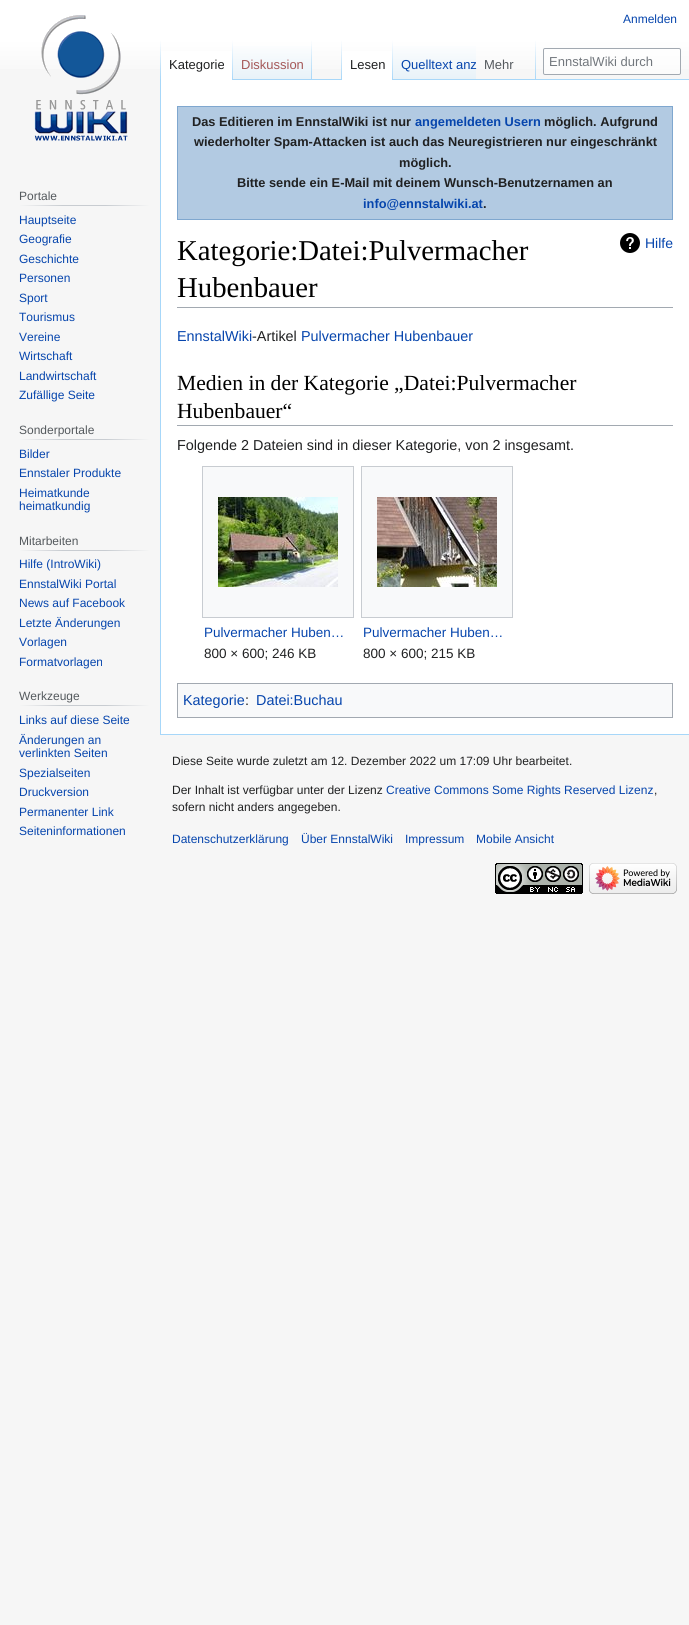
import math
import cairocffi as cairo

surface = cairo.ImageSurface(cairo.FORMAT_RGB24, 689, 1625)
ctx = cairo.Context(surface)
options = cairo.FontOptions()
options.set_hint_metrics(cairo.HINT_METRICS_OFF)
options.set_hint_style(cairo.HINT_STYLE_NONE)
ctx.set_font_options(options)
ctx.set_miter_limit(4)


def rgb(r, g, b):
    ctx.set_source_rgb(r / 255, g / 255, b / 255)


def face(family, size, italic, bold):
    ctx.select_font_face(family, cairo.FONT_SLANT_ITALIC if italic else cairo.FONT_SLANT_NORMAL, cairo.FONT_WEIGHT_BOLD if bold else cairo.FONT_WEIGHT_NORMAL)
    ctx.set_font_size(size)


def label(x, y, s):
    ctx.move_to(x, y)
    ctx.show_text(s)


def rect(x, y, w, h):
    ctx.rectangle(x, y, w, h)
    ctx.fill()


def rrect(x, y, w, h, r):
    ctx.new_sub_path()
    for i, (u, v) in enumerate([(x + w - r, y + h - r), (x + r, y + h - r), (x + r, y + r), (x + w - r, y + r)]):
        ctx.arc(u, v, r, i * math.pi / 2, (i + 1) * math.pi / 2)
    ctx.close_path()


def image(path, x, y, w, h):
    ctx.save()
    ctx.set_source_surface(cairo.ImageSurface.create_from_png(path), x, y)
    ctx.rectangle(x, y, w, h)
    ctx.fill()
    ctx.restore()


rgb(246, 246, 246)
ctx.paint()
gradient = cairo.LinearGradient(345, 0, 345, 80)
gradient.add_color_stop_rgba(0.5, 1, 1, 1, 1)
gradient.add_color_stop_rgba(1, 0.965, 0.965, 0.965, 1)
ctx.set_source(gradient)
rect(0, 0, 689, 69)
face('Liberation Sans', 12, 0, 0)
rgb(6, 69, 173)
label(623, 23, 'Anmelden')
rgb(167, 215, 249)
rect(160, 734, 529, 1)
rect(160, 79, 1, 656)
gradient = cairo.LinearGradient(161, 40, 161, 80)
gradient.add_color_stop_rgba(0, 0.655, 0.843, 0.976, 0)
gradient.add_color_stop_rgba(1, 0.655, 0.843, 0.976, 1)
ctx.set_source(gradient)
rect(160, 40, 1, 40)
rgb(255, 255, 255)
rect(161, 51, 71, 29)
gradient = cairo.LinearGradient(233, 40, 233, 80)
gradient.add_color_stop_rgba(0, 1, 1, 1, 1)
gradient.add_color_stop_rgba(1, 0.655, 0.843, 0.976, 1)
ctx.set_source(gradient)
rect(232, 40, 1, 40)
face('Liberation Sans', 13, 0, 0)
rgb(32, 33, 34)
label(169, 69, 'Kategorie')
gradient = cairo.LinearGradient(273, 80, 273, 40)
gradient.add_color_stop_rgba(0, 0.467, 0.757, 0.965, 1)
gradient.add_color_stop_rgba(0.03, 0.91, 0.949, 0.973, 1)
gradient.add_color_stop_rgba(1, 1, 1, 1, 1)
ctx.set_source(gradient)
rect(233, 46, 79, 34)
gradient = cairo.LinearGradient(312, 40, 312, 80)
gradient.add_color_stop_rgba(0, 0.655, 0.843, 0.976, 0)
gradient.add_color_stop_rgba(1, 0.655, 0.843, 0.976, 1)
ctx.set_source(gradient)
rect(311, 40, 1, 40)
rgb(165, 88, 88)
label(241, 69, 'Diskussion')
rgb(167, 215, 249)
rect(312, 79, 377, 1)
gradient = cairo.LinearGradient(342, 40, 342, 80)
gradient.add_color_stop_rgba(0, 0.655, 0.843, 0.976, 0)
gradient.add_color_stop_rgba(1, 0.655, 0.843, 0.976, 1)
ctx.set_source(gradient)
rect(341, 40, 1, 40)
rgb(255, 255, 255)
rect(342, 51, 50, 29)
gradient = cairo.LinearGradient(393, 40, 393, 80)
gradient.add_color_stop_rgba(0, 1, 1, 1, 1)
gradient.add_color_stop_rgba(1, 0.655, 0.843, 0.976, 1)
ctx.set_source(gradient)
rect(392, 40, 1, 40)
rgb(32, 33, 34)
label(350, 69, 'Lesen')
gradient = cairo.LinearGradient(435, 80, 435, 40)
gradient.add_color_stop_rgba(0, 0.467, 0.757, 0.965, 1)
gradient.add_color_stop_rgba(0.03, 0.91, 0.949, 0.973, 1)
gradient.add_color_stop_rgba(1, 1, 1, 1, 1)
ctx.set_source(gradient)
rect(393, 46, 83, 33)
ctx.save()
ctx.rectangle(393, 40, 83, 40)
ctx.clip()
rgb(6, 69, 173)
label(401, 69, 'Quelltext anz')
ctx.restore()
gradient = cairo.LinearGradient(536, 40, 536, 80)
gradient.add_color_stop_rgba(0, 0.655, 0.843, 0.976, 0)
gradient.add_color_stop_rgba(1, 0.655, 0.843, 0.976, 1)
ctx.set_source(gradient)
rect(535, 40, 1, 40)
rgb(84, 89, 93)
label(484, 69, 'Mehr')
ctx.set_source_rgba(1, 1, 1, 0.5)
rrect(543.5, 48.5, 137, 26, 1.5)
ctx.fill_preserve()
rgb(162, 169, 177)
ctx.set_line_width(1)
ctx.stroke()
rgb(114, 119, 125)
label(549, 66, 'EnnstalWiki durch')
image('image0.png', 34, 15, 94, 126)
gradient = cairo.LinearGradient(19, 206, 150, 206)
gradient.add_color_stop_rgba(0, 0.965, 0.965, 0.965, 1)
gradient.add_color_stop_rgba(0.33, 0.784, 0.8, 0.82, 1)
gradient.add_color_stop_rgba(0.66, 0.784, 0.8, 0.82, 1)
gradient.add_color_stop_rgba(1, 0.965, 0.965, 0.965, 1)
ctx.set_source(gradient)
rect(19, 205, 131, 1)
face('Liberation Sans', 12, 0, 0)
rgb(84, 89, 93)
label(19, 200, 'Portale')
rgb(6, 69, 173)
label(19, 224, 'Hauptseite')
label(19, 243, 'Geografie')
label(19, 263, 'Geschichte')
label(19, 282, 'Personen')
label(19, 302, 'Sport')
label(19, 321, 'Tourismus')
label(19, 341, 'Vereine')
label(19, 360, 'Wirtschaft')
label(19, 380, 'Landwirtschaft')
label(19, 399, 'Zufällige Seite')
gradient = cairo.LinearGradient(19, 440, 150, 440)
gradient.add_color_stop_rgba(0, 0.965, 0.965, 0.965, 1)
gradient.add_color_stop_rgba(0.33, 0.784, 0.8, 0.82, 1)
gradient.add_color_stop_rgba(0.66, 0.784, 0.8, 0.82, 1)
gradient.add_color_stop_rgba(1, 0.965, 0.965, 0.965, 1)
ctx.set_source(gradient)
rect(19, 439, 131, 1)
rgb(84, 89, 93)
label(19, 434, 'Sonderportale')
rgb(6, 69, 173)
label(19, 458, 'Bilder')
label(19, 477, 'Ennstaler Produkte')
label(19, 497, 'Heimatkunde')
label(19, 510, 'heimatkundig')
gradient = cairo.LinearGradient(19, 551, 150, 551)
gradient.add_color_stop_rgba(0, 0.965, 0.965, 0.965, 1)
gradient.add_color_stop_rgba(0.33, 0.784, 0.8, 0.82, 1)
gradient.add_color_stop_rgba(0.66, 0.784, 0.8, 0.82, 1)
gradient.add_color_stop_rgba(1, 0.965, 0.965, 0.965, 1)
ctx.set_source(gradient)
rect(19, 550, 131, 1)
rgb(84, 89, 93)
label(19, 545, 'Mitarbeiten')
rgb(6, 69, 173)
label(19, 568, 'Hilfe (IntroWiki)')
label(19, 588, 'EnnstalWiki Portal')
label(19, 607, 'News auf Facebook')
label(19, 627, 'Letzte Änderungen')
label(19, 646, 'Vorlagen')
label(19, 666, 'Formatvorlagen')
gradient = cairo.LinearGradient(19, 706, 150, 706)
gradient.add_color_stop_rgba(0, 0.965, 0.965, 0.965, 1)
gradient.add_color_stop_rgba(0.33, 0.784, 0.8, 0.82, 1)
gradient.add_color_stop_rgba(0.66, 0.784, 0.8, 0.82, 1)
gradient.add_color_stop_rgba(1, 0.965, 0.965, 0.965, 1)
ctx.set_source(gradient)
rect(19, 705, 131, 1)
rgb(84, 89, 93)
label(19, 700, 'Werkzeuge')
rgb(6, 69, 173)
label(19, 724, 'Links auf diese Seite')
label(19, 744, 'Änderungen an')
label(19, 757, 'verlinkten Seiten')
label(19, 777, 'Spezialseiten')
label(19, 796, 'Druckversion')
label(19, 816, 'Permanenter Link')
label(19, 835, 'Seiteninformationen')
rgb(255, 255, 255)
rect(161, 80, 528, 654)
rgb(178, 202, 226)
ctx.rectangle(177.5, 106.5, 495, 113)
ctx.fill_preserve()
rgb(127, 167, 207)
ctx.stroke()
face('Liberation Sans', 12.8, 0, 1)
rgb(32, 33, 34)
label(192, 126, 'Das Editieren im EnnstalWiki ist nur')
rgb(6, 69, 173)
label(415, 126, 'angemeldeten Usern')
rgb(32, 33, 34)
label(544, 126, 'möglich. Aufgrund')
label(194, 146, 'wiederholter Spam-Attacken ist auch das Neuregistrieren nur eingeschränkt')
label(399, 167, 'möglich.')
label(237, 187, 'Bitte sende ein E-Mail mit deinem Wunsch-Benutzernamen an')
rgb(6, 69, 173)
label(363, 208, 'info@ennstalwiki.at')
rgb(32, 33, 34)
label(483, 208, '.')
rgb(162, 169, 177)
rect(177, 307, 496, 1)
face('Liberation Serif', 28.75, 0, 0)
rgb(0, 0, 0)
label(177, 260, 'Kategorie:Datei:Pulvermacher')
label(177, 297, 'Hubenbauer')
image('image1.png', 620, 233, 20, 20)
face('Liberation Sans', 14, 0, 0)
rgb(6, 69, 173)
label(645, 248, 'Hilfe')
face('Liberation Sans', 14.4, 0, 0)
label(177, 341, 'EnnstalWiki')
rgb(32, 33, 34)
label(252, 341, '-Artikel')
rgb(6, 69, 173)
label(301, 341, 'Pulvermacher Hubenbauer')
rgb(162, 169, 177)
rect(177, 425, 496, 1)
face('Liberation Serif', 21.6, 0, 0)
rgb(0, 0, 0)
label(177, 390, 'Medien in der Kategorie „Datei:Pulvermacher')
label(177, 418, 'Hubenbauer“')
face('Liberation Sans', 14.4, 0, 0)
rgb(32, 33, 34)
label(177, 450, 'Folgende 2 Dateien sind in dieser Kategorie, von 2 insgesamt.')
rgb(248, 249, 250)
ctx.rectangle(202.5, 466.5, 151, 151)
ctx.fill_preserve()
rgb(200, 204, 209)
ctx.stroke()
image('image2.png', 218, 497, 120, 90)
face('Liberation Sans', 13.5, 0, 0)
rgb(6, 69, 173)
label(204, 637, 'Pulvermacher Huben…')
rgb(32, 33, 34)
label(204, 658, '800 × 600; 246 KB')
rgb(248, 249, 250)
ctx.rectangle(361.5, 466.5, 151, 151)
ctx.fill_preserve()
rgb(200, 204, 209)
ctx.stroke()
image('image3.png', 377, 497, 120, 90)
rgb(6, 69, 173)
label(363, 637, 'Pulvermacher Huben…')
rgb(32, 33, 34)
label(363, 658, '800 × 600; 215 KB')
rgb(248, 249, 250)
ctx.rectangle(177.5, 683.5, 495, 34)
ctx.fill_preserve()
rgb(162, 169, 177)
ctx.stroke()
face('Liberation Sans', 14.4, 0, 0)
rgb(6, 69, 173)
label(183, 705, 'Kategorie')
rgb(32, 33, 34)
label(245, 705, ':')
rgb(6, 69, 173)
label(256, 705, 'Datei:Buchau')
face('Liberation Sans', 12, 0, 0)
rgb(32, 33, 34)
label(172, 765, 'Diese Seite wurde zuletzt am 12. Dezember 2022 um 17:09 Uhr bearbeitet.')
label(172, 794, 'Der Inhalt ist verfügbar unter der Lizenz')
rgb(6, 69, 173)
label(386, 794, 'Creative Commons Some Rights Reserved Lizenz')
rgb(32, 33, 34)
label(654, 794, ',')
label(172, 811, 'sofern nicht anders angegeben.')
rgb(6, 69, 173)
label(172, 843, 'Datenschutzerklärung')
label(301, 843, 'Über EnnstalWiki')
label(405, 843, 'Impressum')
label(476, 843, 'Mobile Ansicht')
image('image4.png', 495, 863, 88, 31)
image('image5.png', 589, 863, 88, 31)
surface.write_to_png('render.png')
